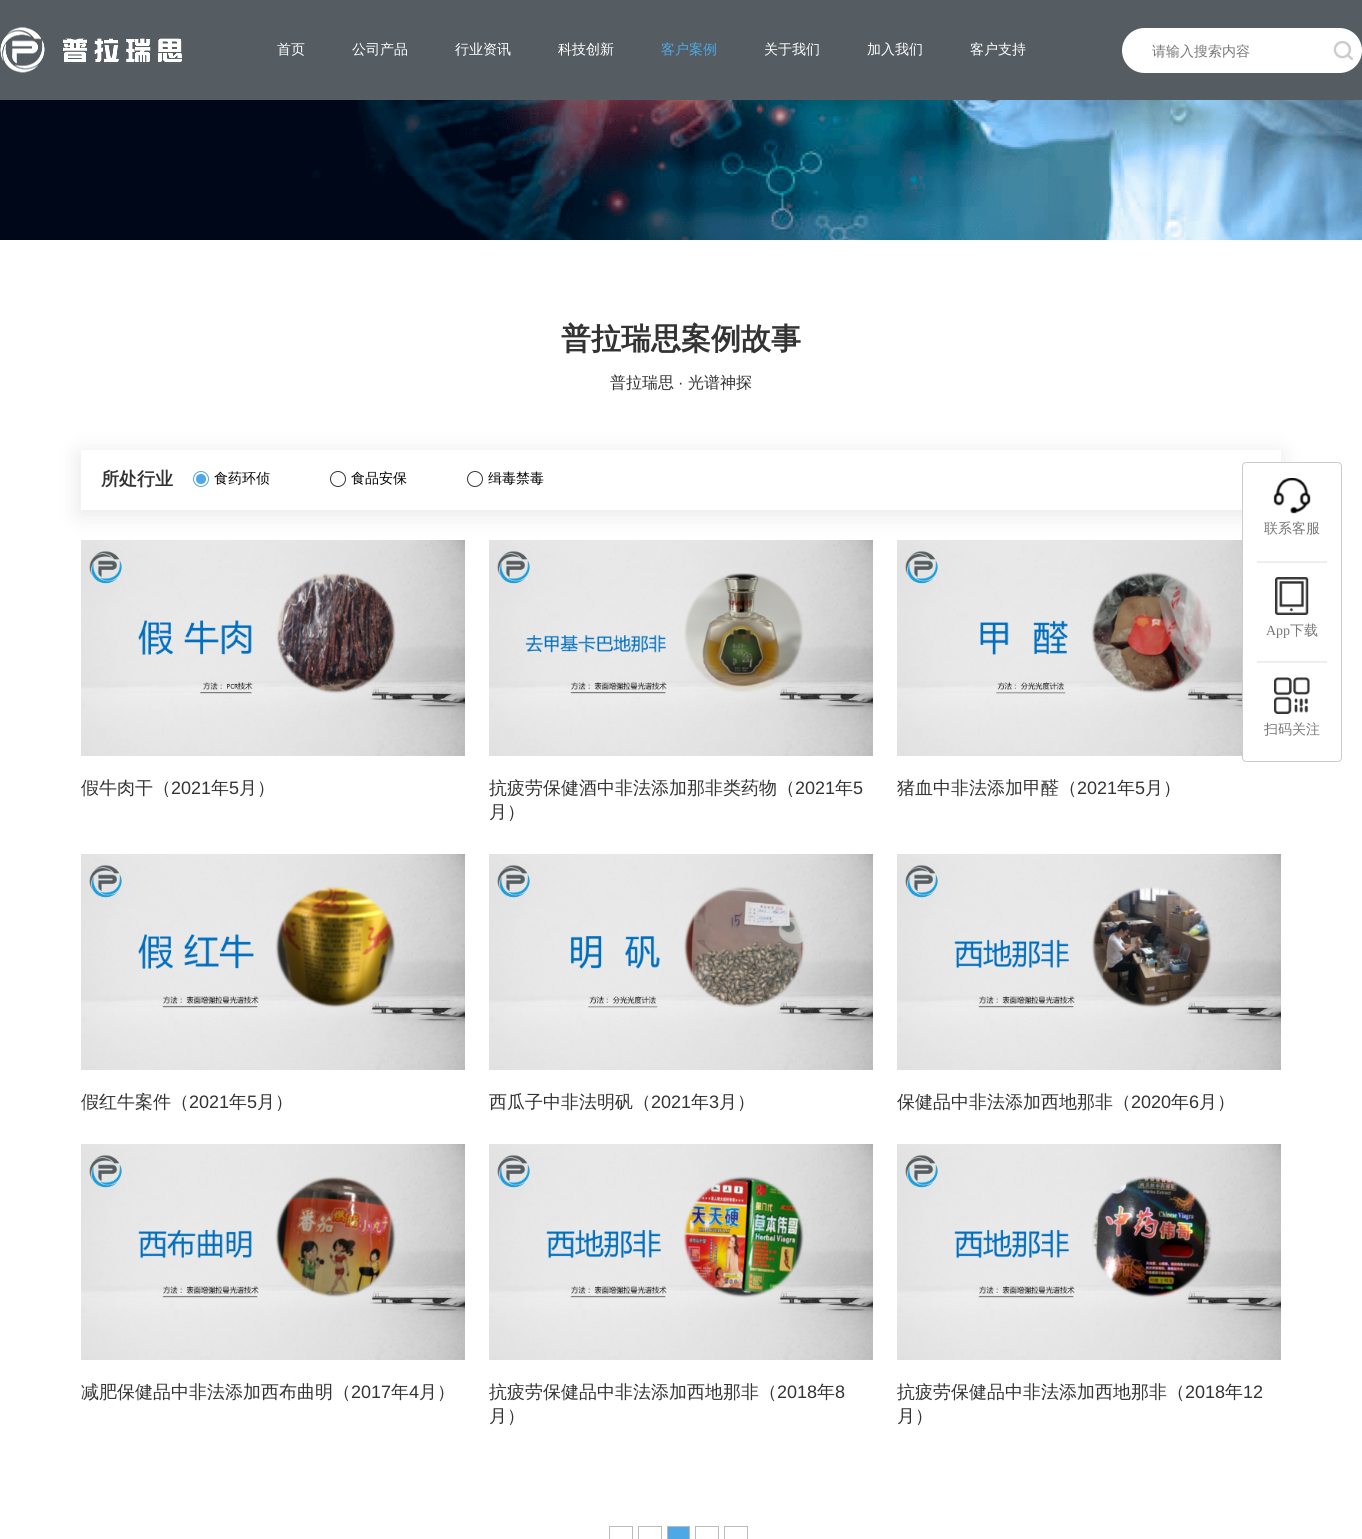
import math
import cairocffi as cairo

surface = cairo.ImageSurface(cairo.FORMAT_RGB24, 1362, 1539)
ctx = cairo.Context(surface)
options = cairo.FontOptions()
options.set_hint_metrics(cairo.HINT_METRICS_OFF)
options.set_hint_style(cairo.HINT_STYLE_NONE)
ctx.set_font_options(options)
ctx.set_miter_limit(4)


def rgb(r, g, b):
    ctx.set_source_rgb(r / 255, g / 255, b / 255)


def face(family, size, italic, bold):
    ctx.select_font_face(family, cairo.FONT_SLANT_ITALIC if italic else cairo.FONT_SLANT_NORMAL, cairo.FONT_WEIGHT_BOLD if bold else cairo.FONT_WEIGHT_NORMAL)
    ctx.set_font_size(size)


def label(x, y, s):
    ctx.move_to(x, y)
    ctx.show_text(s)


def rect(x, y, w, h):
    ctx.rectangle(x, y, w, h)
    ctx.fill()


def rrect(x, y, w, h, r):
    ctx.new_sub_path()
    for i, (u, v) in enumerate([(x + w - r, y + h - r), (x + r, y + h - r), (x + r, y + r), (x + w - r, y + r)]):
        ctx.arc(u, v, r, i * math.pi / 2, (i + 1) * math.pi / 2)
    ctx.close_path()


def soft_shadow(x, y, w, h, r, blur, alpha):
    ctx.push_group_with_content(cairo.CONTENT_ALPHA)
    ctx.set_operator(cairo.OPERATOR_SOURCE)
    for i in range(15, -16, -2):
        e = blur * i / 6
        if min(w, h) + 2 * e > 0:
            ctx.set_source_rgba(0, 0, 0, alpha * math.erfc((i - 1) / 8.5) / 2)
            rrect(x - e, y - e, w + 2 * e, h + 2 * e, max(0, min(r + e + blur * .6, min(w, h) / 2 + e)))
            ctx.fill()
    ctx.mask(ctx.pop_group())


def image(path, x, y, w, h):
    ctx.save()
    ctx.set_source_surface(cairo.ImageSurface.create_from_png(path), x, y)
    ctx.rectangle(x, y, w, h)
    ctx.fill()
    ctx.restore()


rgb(255, 255, 255)
ctx.paint()
rgb(86, 93, 98)
rect(0, 0, 1362, 100)
image('image0.png', 0, 27, 182, 46)
face('WenQuanYi Zen Hei Medium', 14, 0, 0)
rgb(255, 255, 255)
label(277, 54, '首页')
label(352, 54, '公司产品')
label(455, 54, '行业资讯')
label(558, 54, '科技创新')
rgb(77, 168, 229)
label(661, 54, '客户案例')
rgb(255, 255, 255)
label(764, 54, '关于我们')
label(867, 54, '加入我们')
label(970, 54, '客户支持')
rrect(1122, 28, 240, 45, 22.5)
ctx.fill()
rgb(119, 119, 119)
label(1152, 56, '请输入搜索内容')
image('image1.png', 1333, 40, 20, 20)
image('image2.png', 0, 100, 1362, 140)
face('WenQuanYi Zen Hei', 30, 0, 1)
rgb(51, 51, 51)
label(561, 349, '普拉瑞思案例故事')
face('WenQuanYi Zen Hei Medium', 16, 0, 0)
label(610, 388, '普拉瑞思')
face('Liberation Sans', 16, 0, 0)
label(678, 388, '·')
face('WenQuanYi Zen Hei Medium', 16, 0, 0)
label(688, 388, '光谱神探')
image('image3.png', 81, 540, 384, 216)
image('image4.png', 489, 540, 384, 216)
image('image5.png', 897, 540, 345, 216)
ctx.save()
ctx.set_fill_rule(cairo.FILL_RULE_EVEN_ODD)
ctx.new_path()
ctx.move_to(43, 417)
ctx.line_to(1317, 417)
ctx.line_to(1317, 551)
ctx.line_to(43, 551)
ctx.close_path()
ctx.move_to(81, 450)
ctx.line_to(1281, 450)
ctx.line_to(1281, 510)
ctx.line_to(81, 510)
ctx.close_path()
ctx.clip()
rgb(163, 160, 160)
soft_shadow(80, 454, 1200, 60, 0, 12, 0.27)
ctx.restore()
face('WenQuanYi Zen Hei', 18, 0, 1)
label(101, 485, '所处行业')
ctx.new_path()
ctx.arc(201, 479, 7.5, 0, 2 * math.pi)
rgb(77, 168, 229)
ctx.set_line_width(1)
ctx.stroke()
ctx.arc(201, 479, 5, 0, 2 * math.pi)
ctx.fill()
face('WenQuanYi Zen Hei Medium', 14, 0, 0)
rgb(0, 0, 0)
label(214, 483, '食药环侦')
ctx.new_path()
ctx.arc(338, 479, 7.5, 0, 2 * math.pi)
rgb(53, 53, 53)
ctx.stroke()
rgb(0, 0, 0)
label(351, 483, '食品安保')
ctx.new_path()
ctx.arc(475, 479, 7.5, 0, 2 * math.pi)
rgb(53, 53, 53)
ctx.stroke()
rgb(0, 0, 0)
label(488, 483, '缉毒禁毒')
face('WenQuanYi Zen Hei Medium', 18, 0, 0)
rgb(51, 51, 51)
label(81, 794, '假牛肉干（')
face('Liberation Sans', 18, 0, 0)
label(171, 794, '2021')
face('WenQuanYi Zen Hei Medium', 18, 0, 0)
label(211, 794, '年')
face('Liberation Sans', 18, 0, 0)
label(229, 794, '5')
face('WenQuanYi Zen Hei Medium', 18, 0, 0)
label(239, 794, '月）')
label(489, 794, '抗疲劳保健酒中非法添加那非类药物（')
face('Liberation Sans', 18, 0, 0)
label(795, 794, '2021')
face('WenQuanYi Zen Hei Medium', 18, 0, 0)
label(835, 794, '年')
face('Liberation Sans', 18, 0, 0)
label(853, 794, '5')
face('WenQuanYi Zen Hei Medium', 18, 0, 0)
label(489, 818, '月）')
label(897, 794, '猪血中非法添加甲醛（')
face('Liberation Sans', 18, 0, 0)
label(1077, 794, '2021')
face('WenQuanYi Zen Hei Medium', 18, 0, 0)
label(1117, 794, '年')
face('Liberation Sans', 18, 0, 0)
label(1135, 794, '5')
face('WenQuanYi Zen Hei Medium', 18, 0, 0)
label(1145, 794, '月）')
image('image6.png', 81, 854, 384, 216)
label(81, 1108, '假红牛案件（')
face('Liberation Sans', 18, 0, 0)
label(189, 1108, '2021')
face('WenQuanYi Zen Hei Medium', 18, 0, 0)
label(229, 1108, '年')
face('Liberation Sans', 18, 0, 0)
label(247, 1108, '5')
face('WenQuanYi Zen Hei Medium', 18, 0, 0)
label(257, 1108, '月）')
image('image7.png', 489, 854, 384, 216)
label(489, 1108, '西瓜子中非法明矾（')
face('Liberation Sans', 18, 0, 0)
label(651, 1108, '2021')
face('WenQuanYi Zen Hei Medium', 18, 0, 0)
label(691, 1108, '年')
face('Liberation Sans', 18, 0, 0)
label(709, 1108, '3')
face('WenQuanYi Zen Hei Medium', 18, 0, 0)
label(719, 1108, '月）')
image('image8.png', 897, 854, 384, 216)
label(897, 1108, '保健品中非法添加西地那非（')
face('Liberation Sans', 18, 0, 0)
label(1131, 1108, '2020')
face('WenQuanYi Zen Hei Medium', 18, 0, 0)
label(1171, 1108, '年')
face('Liberation Sans', 18, 0, 0)
label(1189, 1108, '6')
face('WenQuanYi Zen Hei Medium', 18, 0, 0)
label(1199, 1108, '月）')
image('image9.png', 81, 1144, 384, 216)
label(81, 1398, '减肥保健品中非法添加西布曲明（')
face('Liberation Sans', 18, 0, 0)
label(351, 1398, '2017')
face('WenQuanYi Zen Hei Medium', 18, 0, 0)
label(391, 1398, '年')
face('Liberation Sans', 18, 0, 0)
label(409, 1398, '4')
face('WenQuanYi Zen Hei Medium', 18, 0, 0)
label(419, 1398, '月）')
image('image10.png', 489, 1144, 384, 216)
label(489, 1398, '抗疲劳保健品中非法添加西地那非（')
face('Liberation Sans', 18, 0, 0)
label(777, 1398, '2018')
face('WenQuanYi Zen Hei Medium', 18, 0, 0)
label(817, 1398, '年')
face('Liberation Sans', 18, 0, 0)
label(835, 1398, '8')
face('WenQuanYi Zen Hei Medium', 18, 0, 0)
label(489, 1422, '月）')
image('image11.png', 897, 1144, 384, 216)
label(897, 1398, '抗疲劳保健品中非法添加西地那非（')
face('Liberation Sans', 18, 0, 0)
label(1185, 1398, '2018')
face('WenQuanYi Zen Hei Medium', 18, 0, 0)
label(1225, 1398, '年')
face('Liberation Sans', 18, 0, 0)
label(1243, 1398, '12')
face('WenQuanYi Zen Hei Medium', 18, 0, 0)
label(897, 1422, '月）')
ctx.rectangle(609.5, 1526.5, 23, 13)
rgb(187, 187, 187)
ctx.stroke()
ctx.rectangle(638.5, 1526.5, 23, 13)
ctx.stroke()
rgb(77, 168, 229)
ctx.rectangle(667.5, 1526.5, 22, 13)
ctx.fill_preserve()
rgb(187, 187, 187)
ctx.stroke()
ctx.rectangle(695.5, 1526.5, 23, 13)
ctx.stroke()
ctx.rectangle(724.5, 1526.5, 23, 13)
ctx.stroke()
rgb(255, 255, 255)
rrect(1242.5, 462.5, 99, 299, 3.5)
ctx.fill_preserve()
rgb(204, 204, 204)
ctx.stroke()
image('image12.png', 1273, 478, 38, 36)
face('WenQuanYi Zen Hei Medium', 14, 0, 0)
rgb(119, 119, 119)
label(1264, 533, '联系客服')
rgb(238, 238, 238)
rect(1257, 561, 70, 2)
image('image13.png', 1275, 577, 34, 38)
face('Liberation Serif', 14, 0, 0)
rgb(119, 119, 119)
label(1266, 635, 'App')
face('WenQuanYi Zen Hei Medium', 14, 0, 0)
label(1290, 635, '下载')
rgb(238, 238, 238)
rect(1257, 661, 70, 2)
image('image14.png', 1274, 677, 36, 37)
rgb(119, 119, 119)
label(1264, 734, '扫码关注')
surface.write_to_png('render.png')
